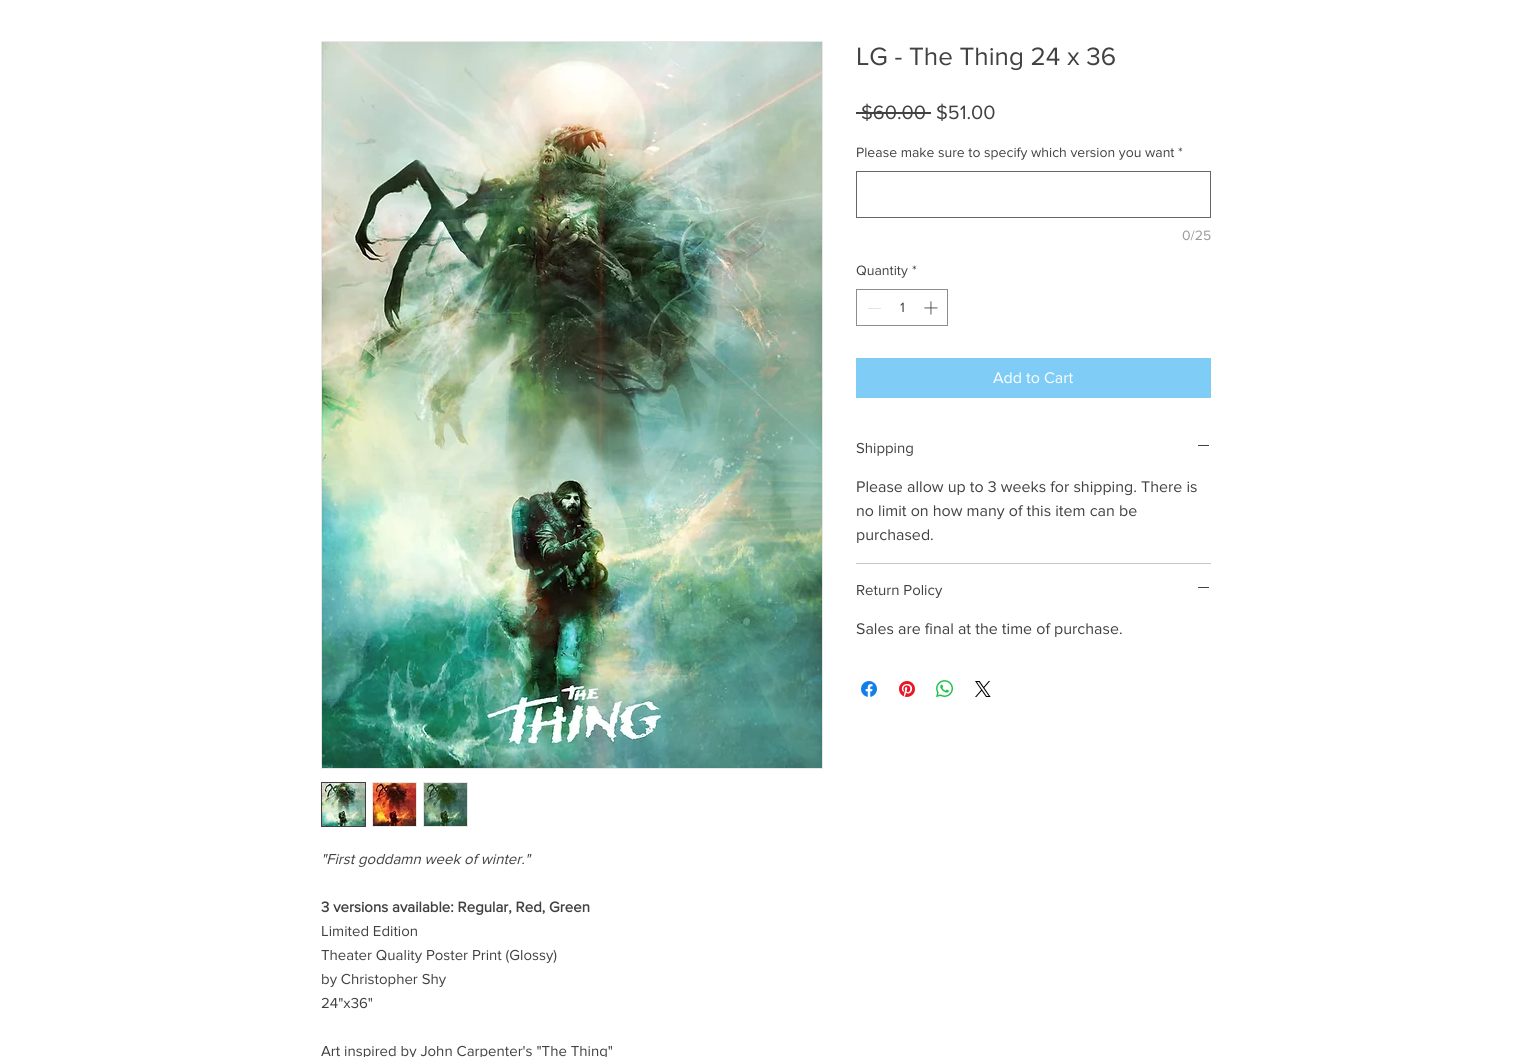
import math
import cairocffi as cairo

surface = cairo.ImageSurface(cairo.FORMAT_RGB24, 1532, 1057)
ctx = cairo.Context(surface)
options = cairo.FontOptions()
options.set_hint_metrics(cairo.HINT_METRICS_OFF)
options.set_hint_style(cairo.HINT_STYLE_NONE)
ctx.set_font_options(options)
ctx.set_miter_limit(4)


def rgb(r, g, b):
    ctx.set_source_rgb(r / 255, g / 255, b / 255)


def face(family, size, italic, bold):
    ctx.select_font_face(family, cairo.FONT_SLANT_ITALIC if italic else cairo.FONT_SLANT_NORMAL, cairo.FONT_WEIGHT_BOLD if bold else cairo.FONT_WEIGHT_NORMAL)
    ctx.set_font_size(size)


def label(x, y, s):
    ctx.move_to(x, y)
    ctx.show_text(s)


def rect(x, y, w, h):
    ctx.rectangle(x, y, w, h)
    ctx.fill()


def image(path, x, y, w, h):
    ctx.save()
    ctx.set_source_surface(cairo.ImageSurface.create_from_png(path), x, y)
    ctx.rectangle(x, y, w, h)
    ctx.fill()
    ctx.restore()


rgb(255, 255, 255)
ctx.paint()
face('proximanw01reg', 26, 0, 0)
rgb(65, 65, 65)
label(856, 65, 'LG - The Thing 24 x 36')
face('proximanw01reg', 20, 0, 0)
label(861, 119, '$60.00')
rect(856, 112, 75, 2)
label(936, 119, '$51.00')
face('proximanw01reg', 14, 0, 0)
label(856, 157, 'Please make sure to specify which version you want')
label(1178, 157, '*')
ctx.rectangle(856.5, 171.5, 354, 46)
rgb(102, 102, 102)
ctx.set_line_width(1)
ctx.stroke()
rgb(153, 153, 151)
label(1182, 240, '0/25')
rgb(65, 65, 65)
label(856, 275, 'Quantity')
label(912, 275, '*')
ctx.rectangle(856.5, 289.5, 91, 36)
rgb(141, 141, 141)
ctx.stroke()
rgb(227, 227, 227)
rect(868, 308, 13, 1)
rgb(65, 65, 65)
label(900, 312, '1')
image('image0.png', 924, 301, 14, 14)
rgb(127, 204, 247)
rect(856, 358, 355, 40)
face('proximanw01reg', 16, 0, 0)
rgb(255, 255, 255)
label(993, 383, 'Add to Cart')
rgb(199, 199, 199)
rect(856, 563, 355, 1)
face('proximanw01reg', 15, 0, 0)
rgb(65, 65, 65)
label(856, 453, 'Shipping')
rect(1198, 445, 11, 1)
face('proximanw01reg', 16, 0, 0)
label(856, 492, 'Please allow up to 3 weeks for shipping. There is')
label(856, 516, 'no limit on how many of this item can be')
label(856, 540, 'purchased.')
face('proximanw01reg', 15, 0, 0)
label(856, 595, 'Return Policy')
rect(1198, 587, 11, 1)
face('proximanw01reg', 16, 0, 0)
label(856, 634, 'Sales are final at the time of purchase.')
image('image1.png', 861, 681, 16, 16)
image('image2.png', 899, 681, 16, 16)
image('image3.png', 936, 680, 17, 17)
image('image4.png', 975, 681, 16, 16)
ctx.rectangle(321.5, 41.5, 501, 727)
rgb(232, 230, 230)
ctx.stroke()
image('image5.png', 322, 42, 500, 726)
ctx.rectangle(321.5, 782.5, 44, 44)
rgb(65, 65, 65)
ctx.stroke()
image('image6.png', 322, 783, 43, 43)
rgb(232, 230, 230)
rect(372, 782, 45, 45)
image('image7.png', 373, 783, 43, 43)
rect(423, 782, 45, 45)
image('image8.png', 424, 783, 43, 43)
face('proximanw01reg', 15, 1, 0)
rgb(65, 65, 65)
label(321, 864, '"First goddamn week of winter."')
face('proximanw01reg', 15, 0, 1)
label(321, 912, '3 versions available: Regular, Red, Green')
face('proximanw01reg', 15, 0, 0)
label(321, 936, 'Limited Edition')
label(321, 960, 'Theater Quality Poster Print (Glossy)')
label(321, 984, 'by Christopher Shy')
label(321, 1008, '24"x36"')
label(321, 1056, 'Art inspired by John Carpenter\'s "The Thing"')
surface.write_to_png('render.png')
